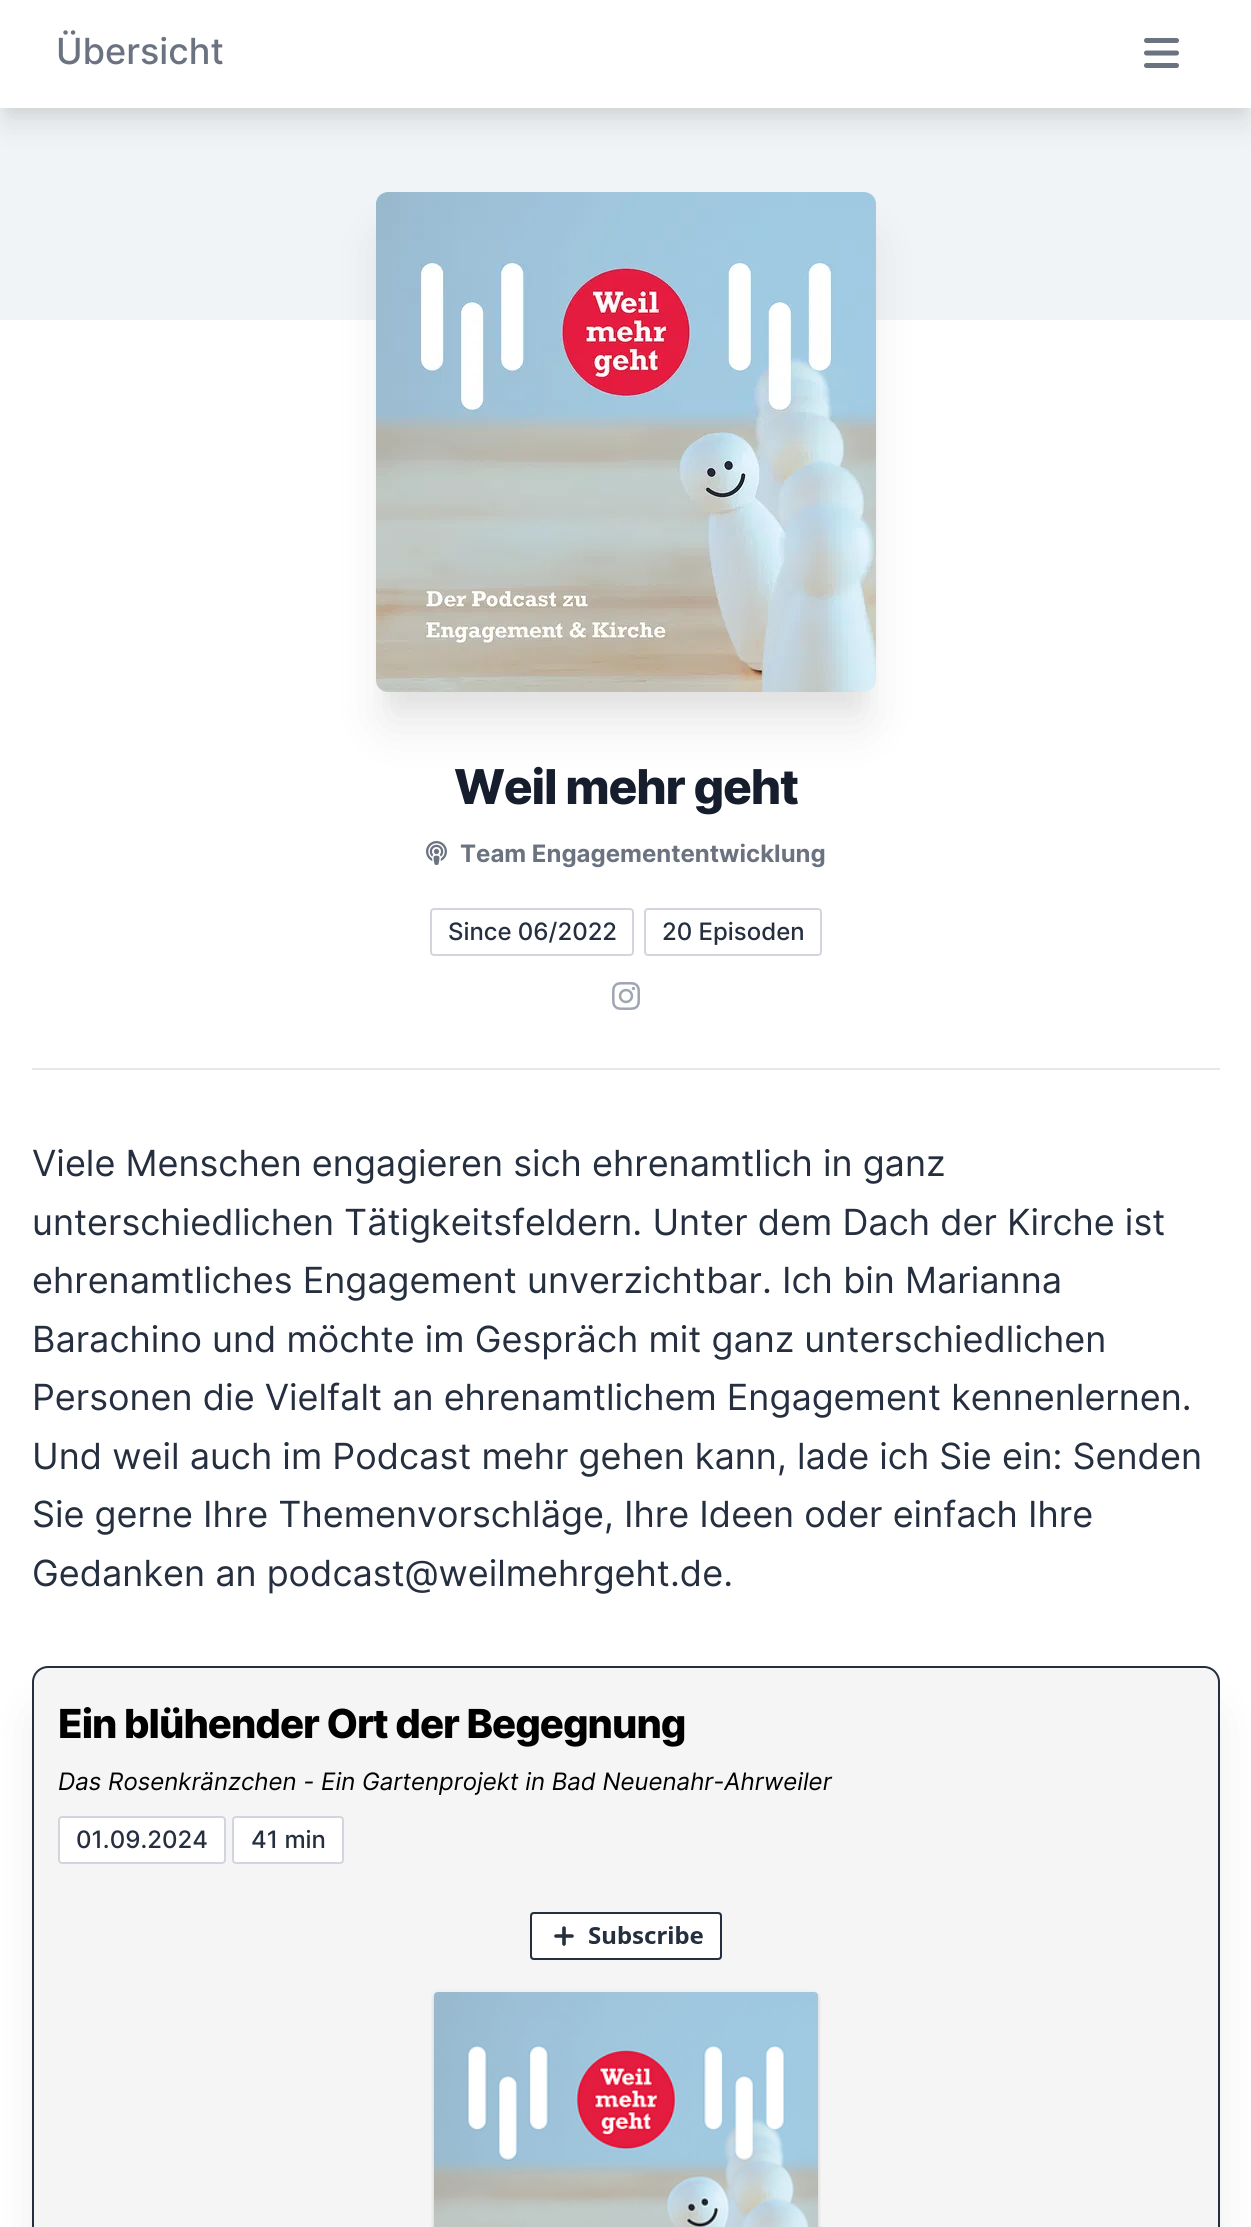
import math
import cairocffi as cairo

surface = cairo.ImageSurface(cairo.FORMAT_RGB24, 1251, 2227)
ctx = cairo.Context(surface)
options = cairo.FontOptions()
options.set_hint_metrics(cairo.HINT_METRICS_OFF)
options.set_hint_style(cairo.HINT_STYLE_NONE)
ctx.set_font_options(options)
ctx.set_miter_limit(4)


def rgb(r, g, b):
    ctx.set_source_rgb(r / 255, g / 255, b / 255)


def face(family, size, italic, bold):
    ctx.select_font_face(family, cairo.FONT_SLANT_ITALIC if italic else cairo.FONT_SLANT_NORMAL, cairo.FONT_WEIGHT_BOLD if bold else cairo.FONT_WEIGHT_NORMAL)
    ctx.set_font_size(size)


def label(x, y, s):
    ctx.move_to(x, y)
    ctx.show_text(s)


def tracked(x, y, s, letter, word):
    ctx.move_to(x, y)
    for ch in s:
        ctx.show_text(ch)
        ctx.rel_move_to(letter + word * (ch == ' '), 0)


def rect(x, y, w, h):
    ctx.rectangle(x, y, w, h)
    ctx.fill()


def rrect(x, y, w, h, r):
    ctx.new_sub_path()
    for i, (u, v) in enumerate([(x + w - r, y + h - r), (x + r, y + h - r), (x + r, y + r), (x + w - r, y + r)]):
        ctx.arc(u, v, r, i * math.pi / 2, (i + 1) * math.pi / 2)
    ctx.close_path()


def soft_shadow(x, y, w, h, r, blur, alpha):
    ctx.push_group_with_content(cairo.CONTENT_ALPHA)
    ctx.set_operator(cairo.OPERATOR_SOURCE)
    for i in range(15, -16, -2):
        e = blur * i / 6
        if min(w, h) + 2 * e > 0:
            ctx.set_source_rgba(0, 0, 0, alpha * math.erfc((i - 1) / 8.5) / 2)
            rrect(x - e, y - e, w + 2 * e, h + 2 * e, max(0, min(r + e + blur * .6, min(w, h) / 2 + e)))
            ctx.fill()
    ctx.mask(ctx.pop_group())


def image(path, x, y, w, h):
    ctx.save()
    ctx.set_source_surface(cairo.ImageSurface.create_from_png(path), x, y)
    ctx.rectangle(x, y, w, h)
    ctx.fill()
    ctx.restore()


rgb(241, 244, 246)
ctx.paint()
rgb(0, 0, 0)
soft_shadow(4, 12, 1244, 100, 0, 6, 0.05)
soft_shadow(6, 26, 1240, 96, 0, 15, 0.1)
rgb(255, 255, 255)
rect(0, 0, 1251, 108)
face('Inter Medium', 36, 0, 0)
rgb(107, 114, 128)
label(56, 64, 'Übersicht')
image('image0.png', 1144, 38, 35, 30)
rgb(255, 255, 255)
rect(0, 320, 1251, 1907)
rgb(0, 0, 0)
soft_shadow(386, 222, 480, 480, 2, 10, 0.04)
soft_shadow(386, 242, 480, 480, 2, 25, 0.1)
image('image1.png', 376, 192, 500, 500)
face('Inter ExtraBold', 48, 0, 0)
rgb(22, 30, 46)
tracked(454, 804, 'Weil mehr geht', -1.25, 0)
image('image2.png', 426, 841, 21, 24)
face('Inter', 24, 0, 1)
rgb(107, 114, 128)
label(460, 862, 'Team Engagemententwicklung')
rrect(431, 909, 202, 46, 3)
rgb(210, 214, 220)
ctx.stroke()
face('Inter Medium', 24, 0, 0)
rgb(37, 47, 63)
label(448, 940, 'Since 06/2022')
rrect(645, 909, 176, 46, 3)
rgb(210, 214, 220)
ctx.stroke()
rgb(37, 47, 63)
label(662, 940, '20 Episoden')
image('image3.png', 612, 982, 28, 28)
rgb(229, 231, 235)
rect(32, 1068, 1188, 2)
face('Inter', 36, 0, 0)
rgb(37, 47, 63)
label(32, 1176, 'Viele Menschen engagieren sich ehrenamtlich in ganz')
label(32, 1235, 'unterschiedlichen Tätigkeitsfeldern. Unter dem Dach der Kirche ist')
label(32, 1293, 'ehrenamtliches Engagement unverzichtbar. Ich bin Marianna')
label(32, 1352, 'Barachino und möchte im Gespräch mit ganz unterschiedlichen')
label(32, 1410, 'Personen die Vielfalt an ehrenamtlichem Engagement kennenlernen.')
label(32, 1469, 'Und weil auch im Podcast mehr gehen kann, lade ich Sie ein: Senden')
label(32, 1527, 'Sie gerne Ihre Themenvorschläge, Ihre Ideen oder einfach Ihre')
label(32, 1586, 'Gedanken an podcast@weilmehrgeht.de.')
rgb(0, 0, 0)
soft_shadow(42, 1716, 1168, 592, 6, 25, 0.1)
rgb(245, 245, 245)
rrect(33, 1667, 1186, 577, 15)
ctx.fill_preserve()
rgb(37, 47, 63)
ctx.stroke()
face('Inter ExtraBold', 40, 0, 0)
rgb(0, 0, 0)
tracked(58, 1738, 'Ein blühender Ort der Begegnung', -1, 0)
face('Inter', 24, 1, 0)
label(58, 1790, 'Das Rosenkränzchen - Ein Gartenprojekt in Bad Neuenahr-Ahrweiler')
rgb(255, 255, 255)
rrect(59, 1817, 166, 46, 3)
ctx.fill_preserve()
rgb(210, 214, 220)
ctx.stroke()
face('Inter Medium', 24, 0, 0)
rgb(37, 47, 63)
label(76, 1848, '01.09.2024')
rgb(255, 255, 255)
rrect(233, 1817, 110, 46, 3)
ctx.fill_preserve()
rgb(210, 214, 220)
ctx.stroke()
rgb(37, 47, 63)
label(251, 1848, '41 min')
image('image4.png', 431, 1912, 390, 315)
surface.write_to_png('render.png')
